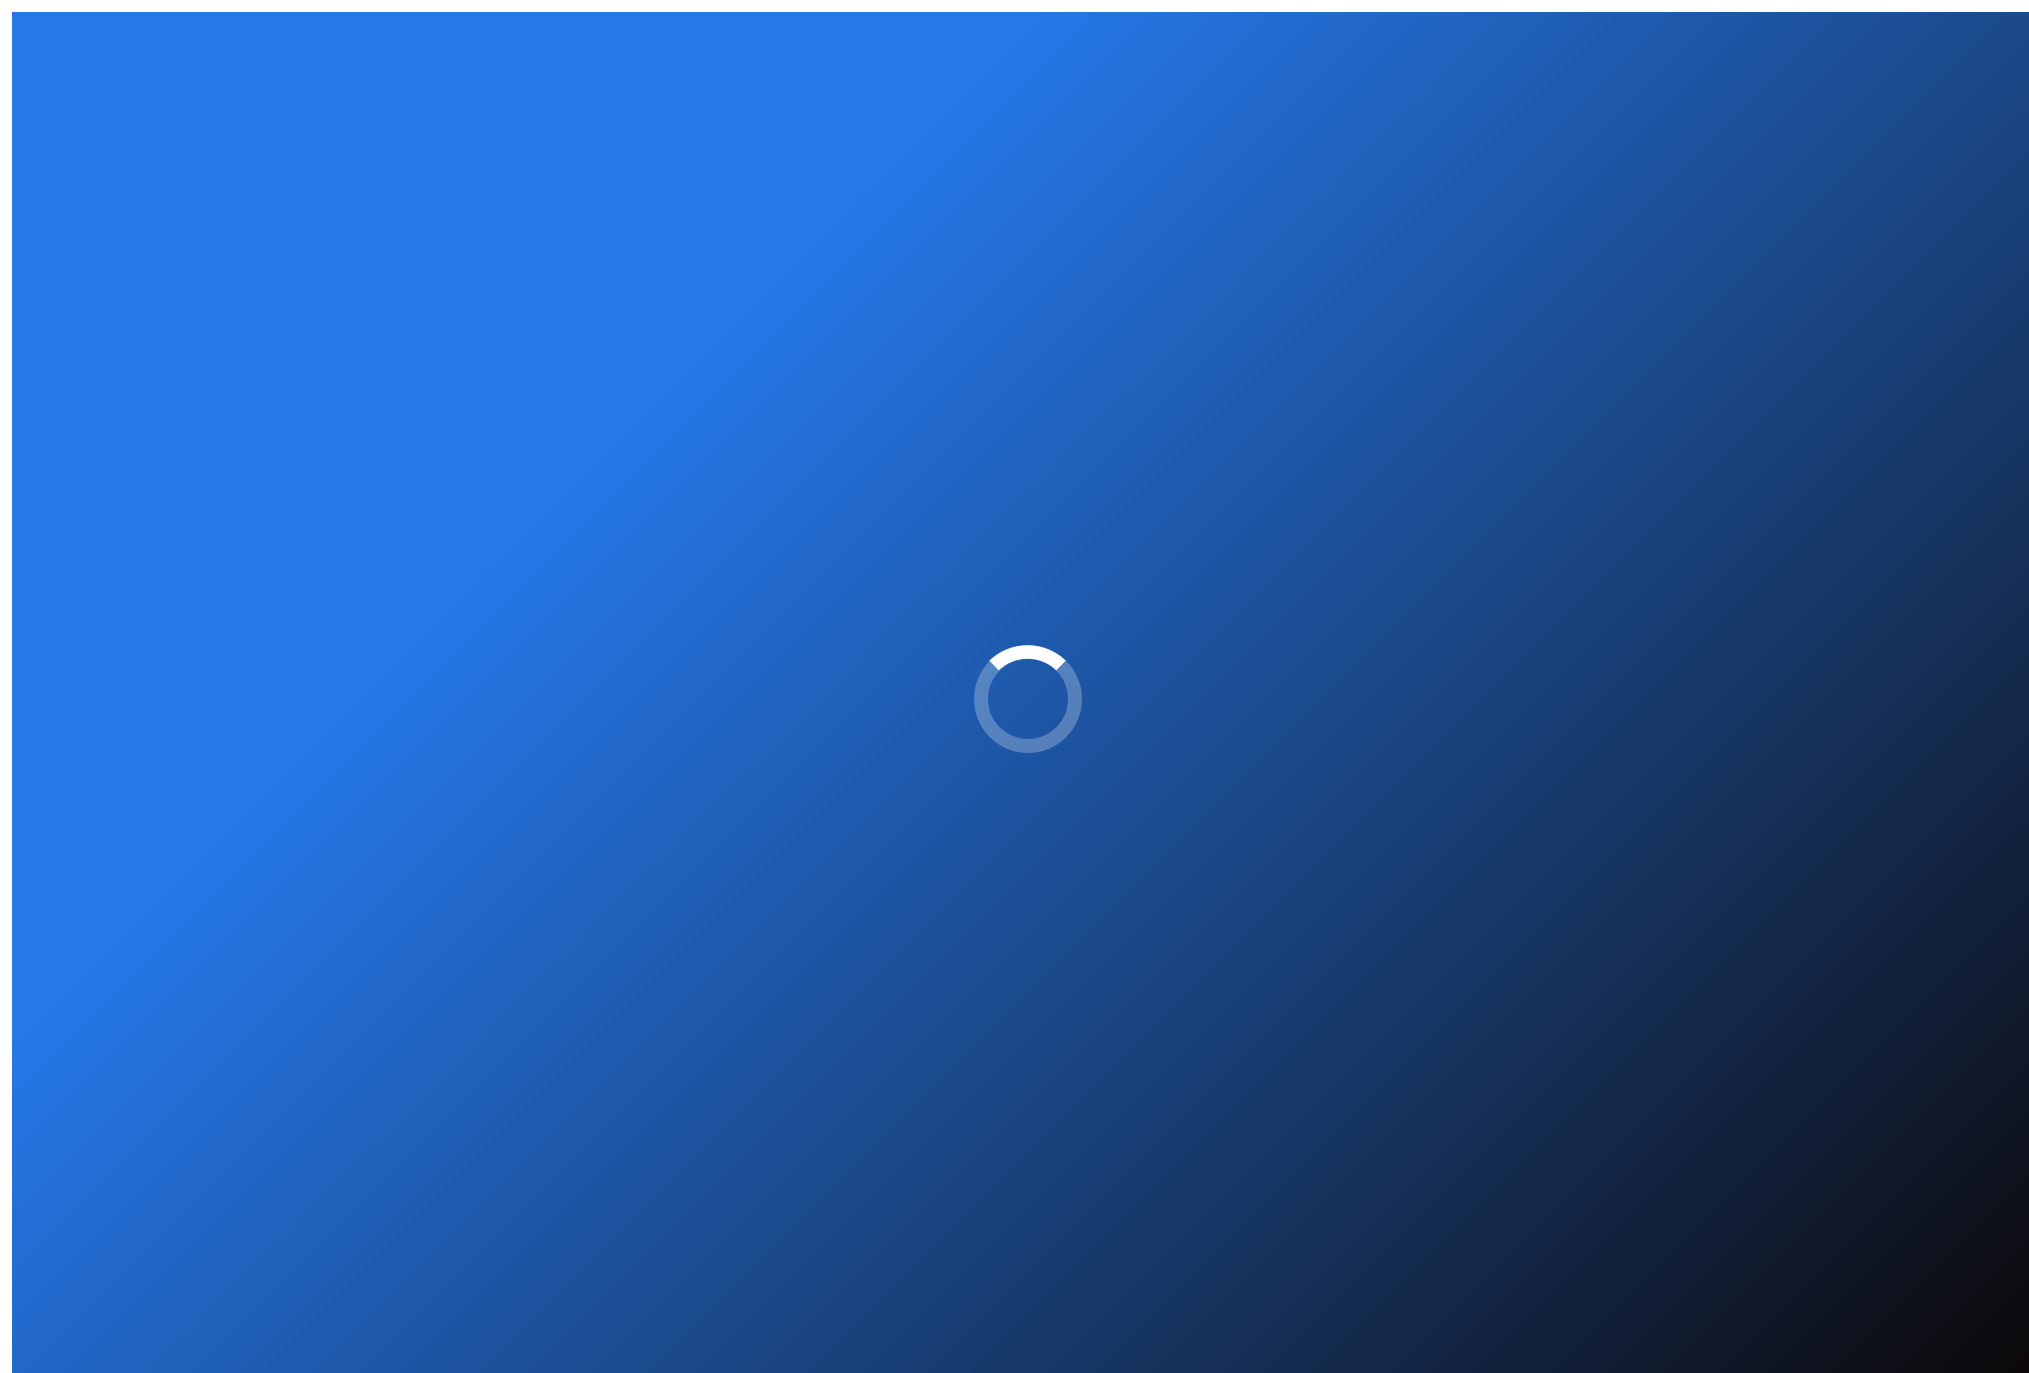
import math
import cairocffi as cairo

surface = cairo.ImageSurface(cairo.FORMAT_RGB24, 2029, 1373)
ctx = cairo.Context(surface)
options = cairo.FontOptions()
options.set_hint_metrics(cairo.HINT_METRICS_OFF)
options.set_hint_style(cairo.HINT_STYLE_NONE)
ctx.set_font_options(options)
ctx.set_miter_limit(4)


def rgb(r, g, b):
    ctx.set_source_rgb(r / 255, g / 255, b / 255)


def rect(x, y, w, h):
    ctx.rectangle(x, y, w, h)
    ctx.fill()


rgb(255, 255, 255)
ctx.paint()
gradient = cairo.LinearGradient(176, -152, 1878, 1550)
gradient.add_color_stop_rgba(0.3, 0.145, 0.471, 0.914, 1)
gradient.add_color_stop_rgba(1, 0.047, 0.027, 0.027, 1)
ctx.set_source(gradient)
rect(12, 12, 2017, 1361)
ctx.arc(1028, 699, 47, 0, 2 * math.pi)
ctx.set_source_rgba(1, 1, 1, 0.25)
ctx.set_line_width(14)
ctx.stroke()
ctx.new_path()
ctx.move_to(994, 665.5)
ctx.curve_to(1012.5, 647.5, 1042.5, 647.5, 1061, 665.5)
rgb(255, 255, 255)
ctx.set_line_width(13.5)
ctx.stroke()
surface.write_to_png('render.png')
